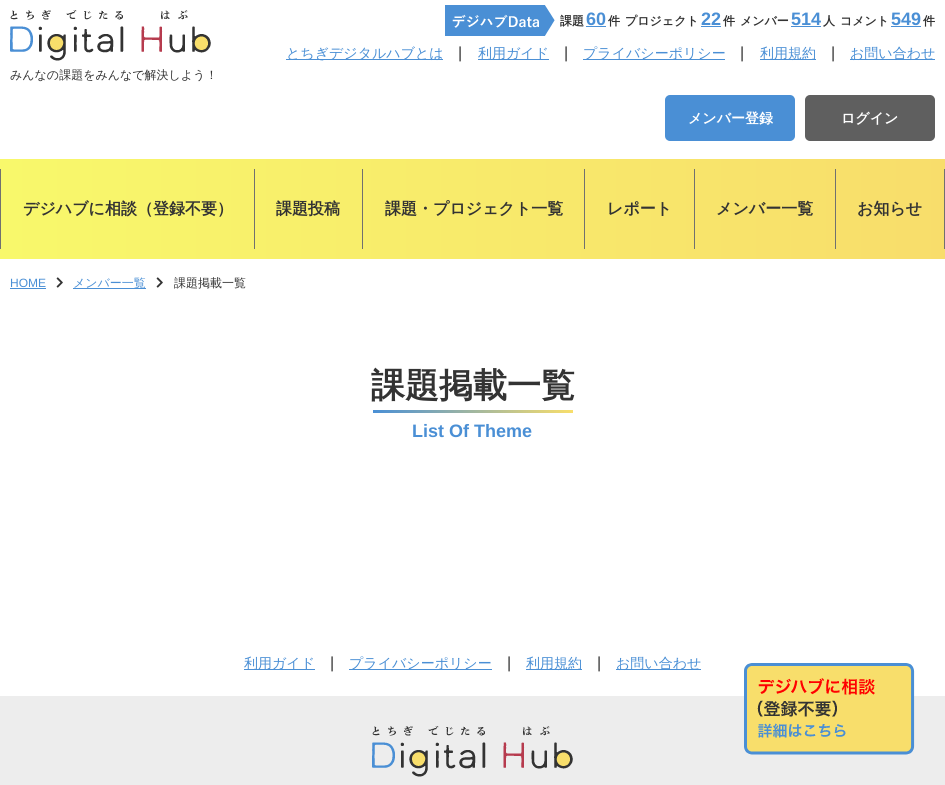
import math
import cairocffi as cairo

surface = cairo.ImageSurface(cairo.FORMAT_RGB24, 945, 785)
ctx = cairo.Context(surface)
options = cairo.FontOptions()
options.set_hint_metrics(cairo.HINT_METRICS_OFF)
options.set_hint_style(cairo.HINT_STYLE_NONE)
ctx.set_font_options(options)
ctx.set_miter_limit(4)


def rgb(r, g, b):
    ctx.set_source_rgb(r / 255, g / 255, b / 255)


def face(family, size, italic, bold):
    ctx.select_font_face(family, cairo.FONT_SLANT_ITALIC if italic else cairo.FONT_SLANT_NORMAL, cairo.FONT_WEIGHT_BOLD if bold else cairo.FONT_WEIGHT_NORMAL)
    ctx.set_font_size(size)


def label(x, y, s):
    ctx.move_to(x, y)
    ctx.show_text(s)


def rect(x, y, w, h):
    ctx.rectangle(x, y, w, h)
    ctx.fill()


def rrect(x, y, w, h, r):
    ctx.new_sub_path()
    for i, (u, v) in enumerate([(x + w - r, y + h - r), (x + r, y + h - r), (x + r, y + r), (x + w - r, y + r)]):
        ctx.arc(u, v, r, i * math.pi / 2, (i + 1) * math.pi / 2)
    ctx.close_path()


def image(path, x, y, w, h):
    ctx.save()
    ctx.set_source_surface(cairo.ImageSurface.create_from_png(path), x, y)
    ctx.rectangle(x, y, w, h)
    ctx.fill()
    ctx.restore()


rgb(255, 255, 255)
ctx.paint()
image('image0.png', 445, 5, 110, 31)
face('WenQuanYi Zen Hei', 12, 0, 1)
rgb(51, 51, 51)
label(560, 25, '課題')
face('Liberation Sans', 18, 0, 1)
rgb(74, 143, 213)
label(586, 25, '60')
rect(586, 26, 20, 1)
face('WenQuanYi Zen Hei', 12, 0, 1)
rgb(51, 51, 51)
label(608, 25, '件')
label(625, 25, 'プロジェクト')
face('Liberation Sans', 18, 0, 1)
rgb(74, 143, 213)
label(701, 25, '22')
rect(701, 26, 20, 1)
face('WenQuanYi Zen Hei', 12, 0, 1)
rgb(51, 51, 51)
label(723, 25, '件')
label(740, 25, 'メンバー')
face('Liberation Sans', 18, 0, 1)
rgb(74, 143, 213)
label(791, 25, '514')
rect(791, 26, 30, 1)
face('WenQuanYi Zen Hei', 12, 0, 1)
rgb(51, 51, 51)
label(823, 25, '人')
label(840, 25, 'コメント')
face('Liberation Sans', 18, 0, 1)
rgb(74, 143, 213)
label(891, 25, '549')
rect(891, 26, 30, 1)
face('WenQuanYi Zen Hei', 12, 0, 1)
rgb(51, 51, 51)
label(923, 25, '件')
rgb(74, 143, 213)
rect(286, 59, 157, 1)
face('WenQuanYi Zen Hei Medium', 14, 0, 0)
label(286, 58, 'とちぎデジタルハブとは')
face('Liberation Sans', 16, 0, 0)
rgb(51, 51, 51)
label(458, 58, '|')
rgb(74, 143, 213)
rect(478, 59, 71, 1)
face('WenQuanYi Zen Hei Medium', 14, 0, 0)
label(478, 58, '利用ガイド')
face('Liberation Sans', 16, 0, 0)
rgb(51, 51, 51)
label(564, 58, '|')
rgb(74, 143, 213)
rect(583, 59, 142, 1)
face('WenQuanYi Zen Hei Medium', 14, 0, 0)
label(583, 58, 'プライバシーポリシー')
face('Liberation Sans', 16, 0, 0)
rgb(51, 51, 51)
label(740, 58, '|')
rgb(74, 143, 213)
rect(760, 59, 56, 1)
face('WenQuanYi Zen Hei Medium', 14, 0, 0)
label(760, 58, '利用規約')
face('Liberation Sans', 16, 0, 0)
rgb(51, 51, 51)
label(831, 58, '|')
rgb(74, 143, 213)
rect(850, 59, 85, 1)
face('WenQuanYi Zen Hei Medium', 14, 0, 0)
label(850, 58, 'お問い合わせ')
image('image1.png', 10, 10, 201, 51)
face('WenQuanYi Zen Hei Medium', 12, 0, 0)
rgb(51, 51, 51)
label(10, 79, 'みんなの課題をみんなで解決しよう！')
rgb(74, 143, 213)
rrect(666, 96, 128, 44, 4)
ctx.fill_preserve()
ctx.stroke()
face('WenQuanYi Zen Hei', 14, 0, 1)
rgb(255, 255, 255)
label(688, 123, 'メンバー登録')
rgb(95, 95, 95)
rrect(806, 96, 128, 44, 4)
ctx.fill_preserve()
ctx.stroke()
rgb(255, 255, 255)
label(841, 123, 'ログイン')
gradient = cairo.LinearGradient(0, 209, 945, 209)
gradient.add_color_stop_rgba(0, 0.973, 0.973, 0.42, 1)
gradient.add_color_stop_rgba(1, 0.973, 0.867, 0.42, 1)
ctx.set_source(gradient)
rect(0, 159, 945, 100)
rgb(112, 112, 112)
rect(0, 169, 1, 80)
face('WenQuanYi Zen Hei', 16, 0, 1)
rgb(51, 51, 51)
label(23, 214, 'デジハブに相談（登録不要）')
rgb(112, 112, 112)
rect(254, 169, 1, 80)
rgb(51, 51, 51)
label(276, 214, '課題投稿')
rgb(112, 112, 112)
rect(362, 169, 1, 80)
rgb(51, 51, 51)
label(385, 214, '課題・プロジェクト一覧')
rgb(112, 112, 112)
rect(584, 169, 1, 80)
rgb(51, 51, 51)
label(607, 214, 'レポート')
rgb(112, 112, 112)
rect(694, 169, 1, 80)
rgb(51, 51, 51)
label(716, 214, 'メンバー一覧')
rgb(112, 112, 112)
rect(944, 169, 1, 80)
rect(835, 169, 1, 80)
rgb(51, 51, 51)
label(857, 214, 'お知らせ')
face('Liberation Sans', 12, 0, 0)
rgb(74, 143, 213)
label(10, 287, 'HOME')
rect(10, 288, 36, 1)
image('image2.png', 56, 277, 7, 11)
rect(73, 288, 73, 1)
face('WenQuanYi Zen Hei Medium', 12, 0, 0)
label(73, 287, 'メンバー一覧')
image('image2.png', 156, 277, 7, 11)
rgb(51, 51, 51)
label(174, 287, '課題掲載一覧')
face('WenQuanYi Zen Hei', 34, 0, 1)
label(371, 397, '課題掲載一覧')
gradient = cairo.LinearGradient(373, 412, 573, 412)
gradient.add_color_stop_rgba(0, 0.29, 0.561, 0.835, 1)
gradient.add_color_stop_rgba(1, 0.973, 0.871, 0.42, 1)
ctx.set_source(gradient)
rect(373, 410, 200, 3)
face('Liberation Sans', 18, 0, 1)
rgb(74, 143, 213)
label(412, 437, 'List Of Theme')
rect(244, 669, 71, 1)
face('WenQuanYi Zen Hei Medium', 14, 0, 0)
label(244, 668, '利用ガイド')
face('Liberation Sans', 16, 0, 0)
rgb(51, 51, 51)
label(330, 668, '|')
rgb(74, 143, 213)
rect(349, 669, 143, 1)
face('WenQuanYi Zen Hei Medium', 14, 0, 0)
label(349, 668, 'プライバシーポリシー')
face('Liberation Sans', 16, 0, 0)
rgb(51, 51, 51)
label(507, 668, '|')
rgb(74, 143, 213)
rect(526, 669, 56, 1)
face('WenQuanYi Zen Hei Medium', 14, 0, 0)
label(526, 668, '利用規約')
face('Liberation Sans', 16, 0, 0)
rgb(51, 51, 51)
label(597, 668, '|')
rgb(74, 143, 213)
rect(616, 669, 85, 1)
face('WenQuanYi Zen Hei Medium', 14, 0, 0)
label(616, 668, 'お問い合わせ')
rgb(237, 237, 237)
rect(0, 696, 945, 89)
image('image3.png', 744, 663, 171, 92)
image('image4.png', 372, 726, 201, 51)
surface.write_to_png('render.png')
